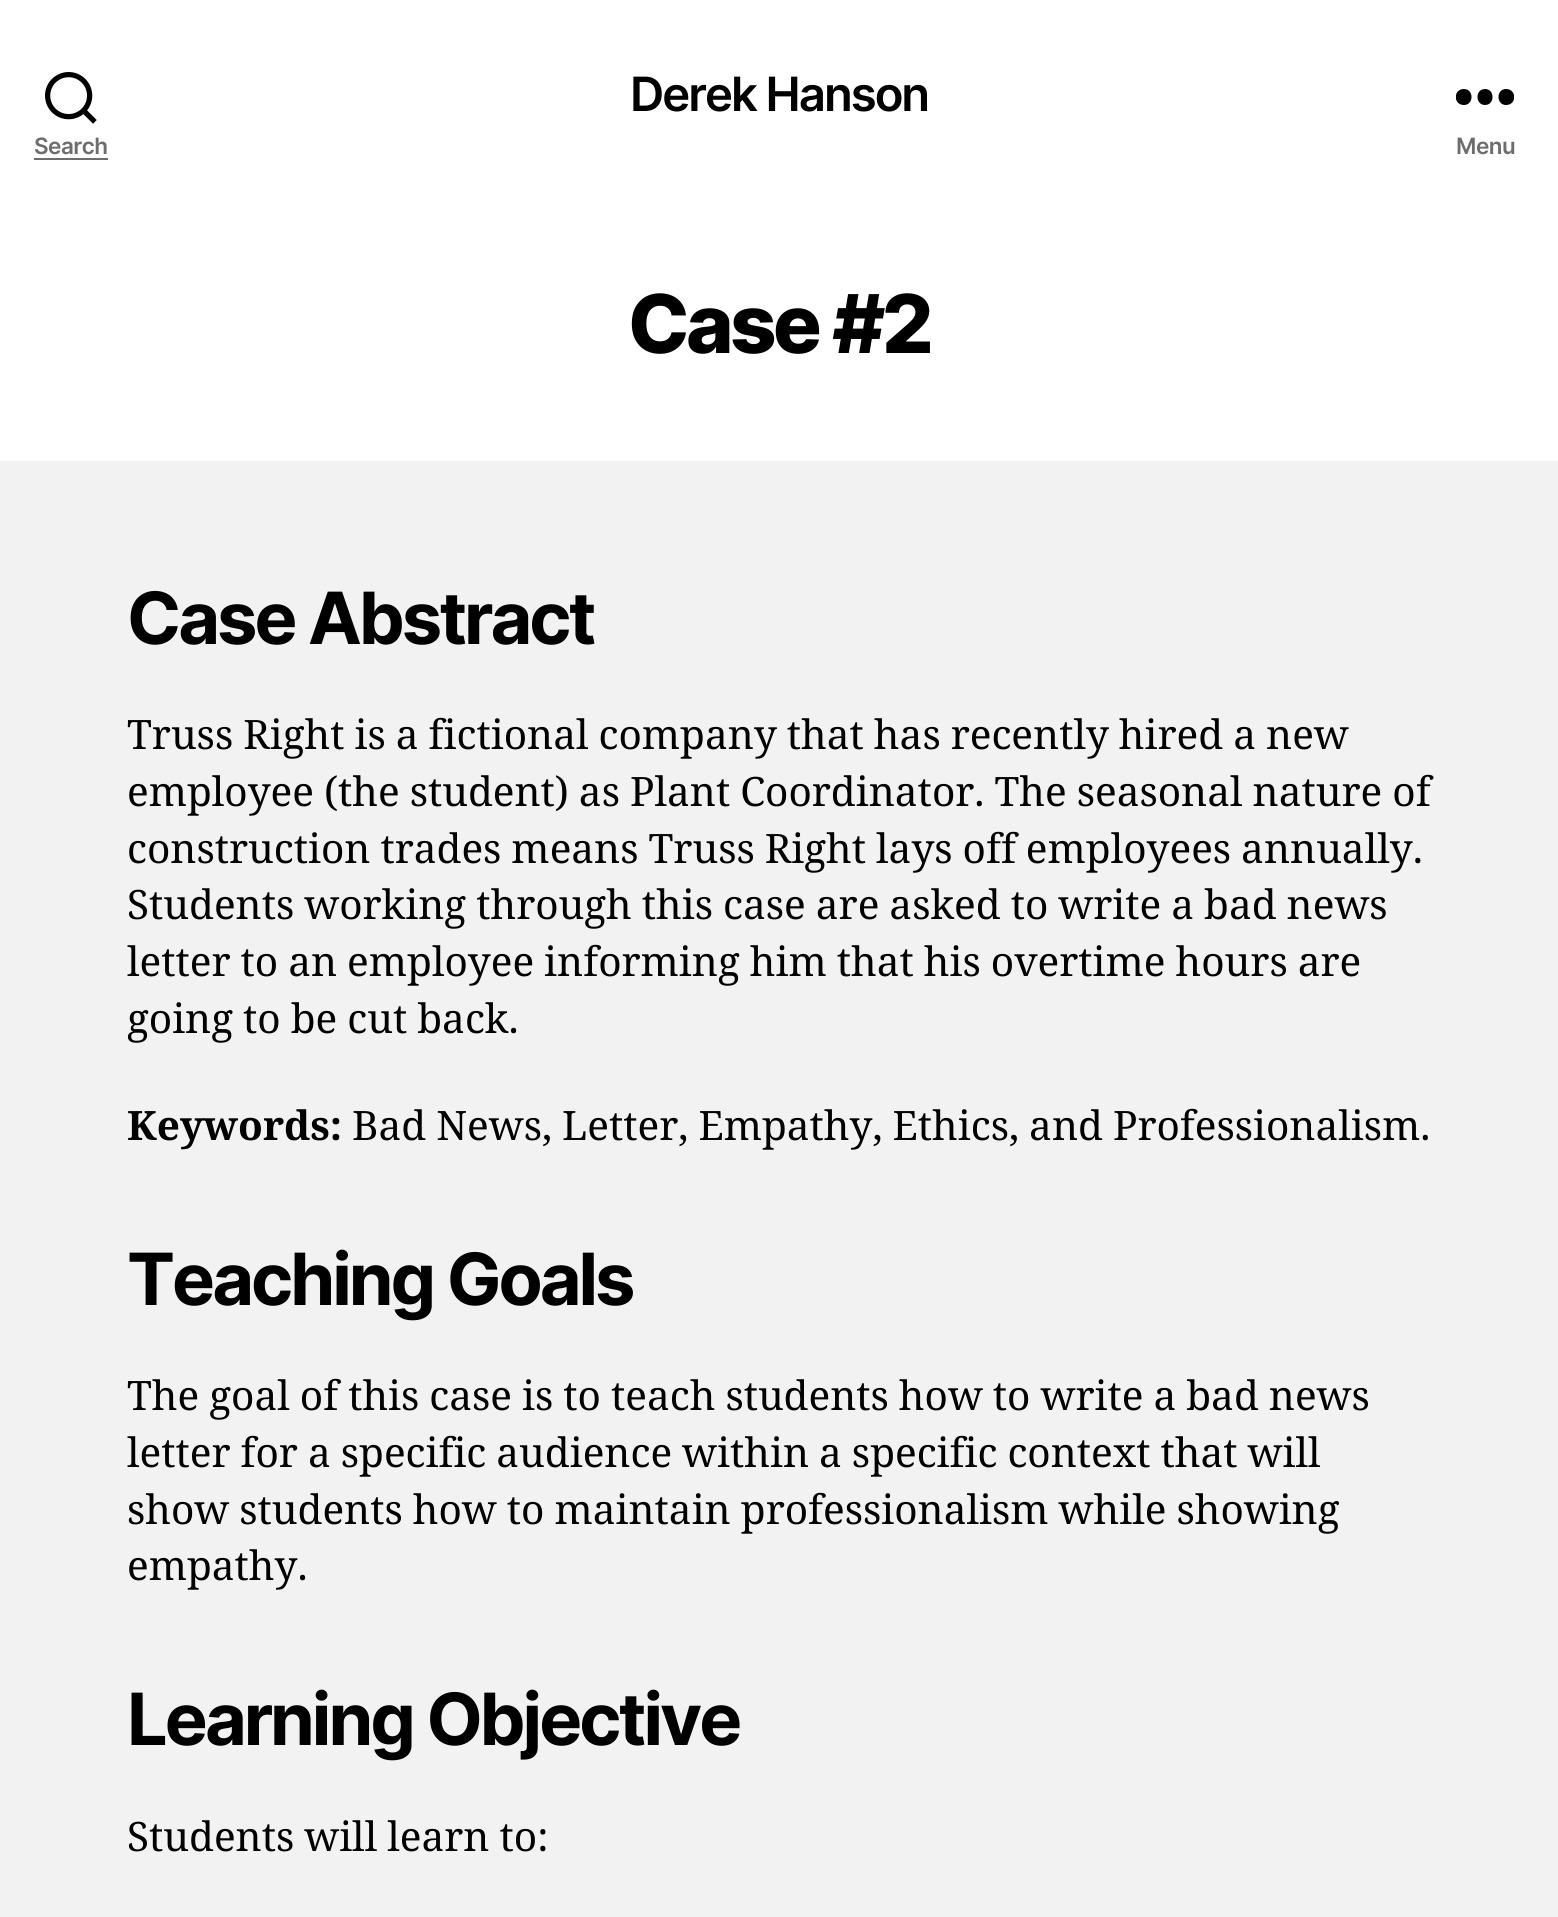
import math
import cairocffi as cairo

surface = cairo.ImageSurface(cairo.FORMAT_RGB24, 1558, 1917)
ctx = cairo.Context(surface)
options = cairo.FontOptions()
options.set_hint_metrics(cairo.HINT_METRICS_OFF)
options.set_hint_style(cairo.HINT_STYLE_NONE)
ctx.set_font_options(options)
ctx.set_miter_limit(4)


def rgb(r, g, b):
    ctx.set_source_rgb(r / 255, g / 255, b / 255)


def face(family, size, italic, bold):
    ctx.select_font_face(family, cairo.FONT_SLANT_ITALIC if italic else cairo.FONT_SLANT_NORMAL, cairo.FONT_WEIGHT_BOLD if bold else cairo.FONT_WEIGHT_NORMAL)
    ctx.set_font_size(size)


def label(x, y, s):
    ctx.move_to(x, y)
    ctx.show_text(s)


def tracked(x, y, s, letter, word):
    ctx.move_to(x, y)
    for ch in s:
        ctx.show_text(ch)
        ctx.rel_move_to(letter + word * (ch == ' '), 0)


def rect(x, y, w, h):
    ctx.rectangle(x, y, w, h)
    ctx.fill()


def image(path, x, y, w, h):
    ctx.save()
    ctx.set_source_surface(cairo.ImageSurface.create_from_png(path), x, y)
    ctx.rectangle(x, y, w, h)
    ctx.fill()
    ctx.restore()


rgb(242, 242, 242)
ctx.paint()
rgb(255, 255, 255)
rect(0, 0, 1558, 461)
face('Inter SemiBold', 47.25, 0, 0)
rgb(0, 0, 0)
tracked(630, 111, 'Derek Hanson', -2, 0)
image('image0.png', 45, 72, 52, 52)
face('Inter SemiBold', 22.5, 0, 0)
rgb(109, 109, 109)
tracked(34, 154, 'Search', -0.5, 0)
rect(34, 158, 74, 2)
ctx.save()
ctx.rectangle(1456, 88, 58, 18)
ctx.clip()
rgb(0, 0, 0)
ctx.set_fill_rule(cairo.FILL_RULE_EVEN_ODD)
ctx.new_path()
ctx.move_to(1464, 105)
ctx.curve_to(1453, 105, 1453, 89, 1464, 89)
ctx.curve_to(1474, 89, 1474, 105, 1464, 105)
ctx.close_path()
ctx.move_to(1485, 105)
ctx.curve_to(1475, 105, 1475, 89, 1485, 89)
ctx.curve_to(1495, 89, 1495, 105, 1485, 105)
ctx.close_path()
ctx.move_to(1506, 105)
ctx.curve_to(1496, 105, 1496, 89, 1506, 89)
ctx.curve_to(1517, 89, 1517, 105, 1506, 105)
ctx.close_path()
ctx.fill()
ctx.restore()
tracked(1456, 154, 'Menu', -0.5, 0)
face('Inter ExtraBold', 81, 0, 0)
rgb(0, 0, 0)
tracked(628, 353, 'Case #2', -3.5, 0)
face('Inter', 72, 0, 1)
tracked(127, 644, 'Case Abstract', -3, 0)
face('Noto Serif', 40.5, 0, 0)
tracked(127, 749, 'Truss Right is a fictional company that has recently hired a new', 0, -0.5)
tracked(127, 806, 'employee (the student) as Plant Coordinator. The seasonal nature of', 0, -0.5)
tracked(127, 863, 'construction trades means Truss Right lays off employees annually.', 0, -0.5)
tracked(127, 919, 'Students working through this case are asked to write a bad news', 0, -0.5)
tracked(127, 976, 'letter to an employee informing him that his overtime hours are', 0, -0.5)
tracked(127, 1033, 'going to be cut back.', 0, -0.5)
face('Noto Serif', 40.5, 0, 1)
label(127, 1140, 'Keywords:')
face('Noto Serif', 40.5, 0, 0)
tracked(352, 1140, 'Bad News, Letter, Empathy, Ethics, and Professionalism.', 0, -0.5)
face('Inter', 72, 0, 1)
tracked(127, 1305, 'Teaching Goals', -3, 0)
face('Noto Serif', 40.5, 0, 0)
tracked(127, 1410, 'The goal of this case is to teach students how to write a bad news', 0, -0.5)
tracked(127, 1467, 'letter for a specific audience within a specific context that will', 0, -0.5)
tracked(127, 1524, 'show students how to maintain professionalism while showing', 0, -0.5)
label(127, 1580, 'empathy.')
face('Inter', 72, 0, 1)
tracked(127, 1745, 'Learning Objective', -3, 0)
face('Noto Serif', 40.5, 0, 0)
tracked(127, 1851, 'Students will learn to:', 0, -0.5)
surface.write_to_png('render.png')
